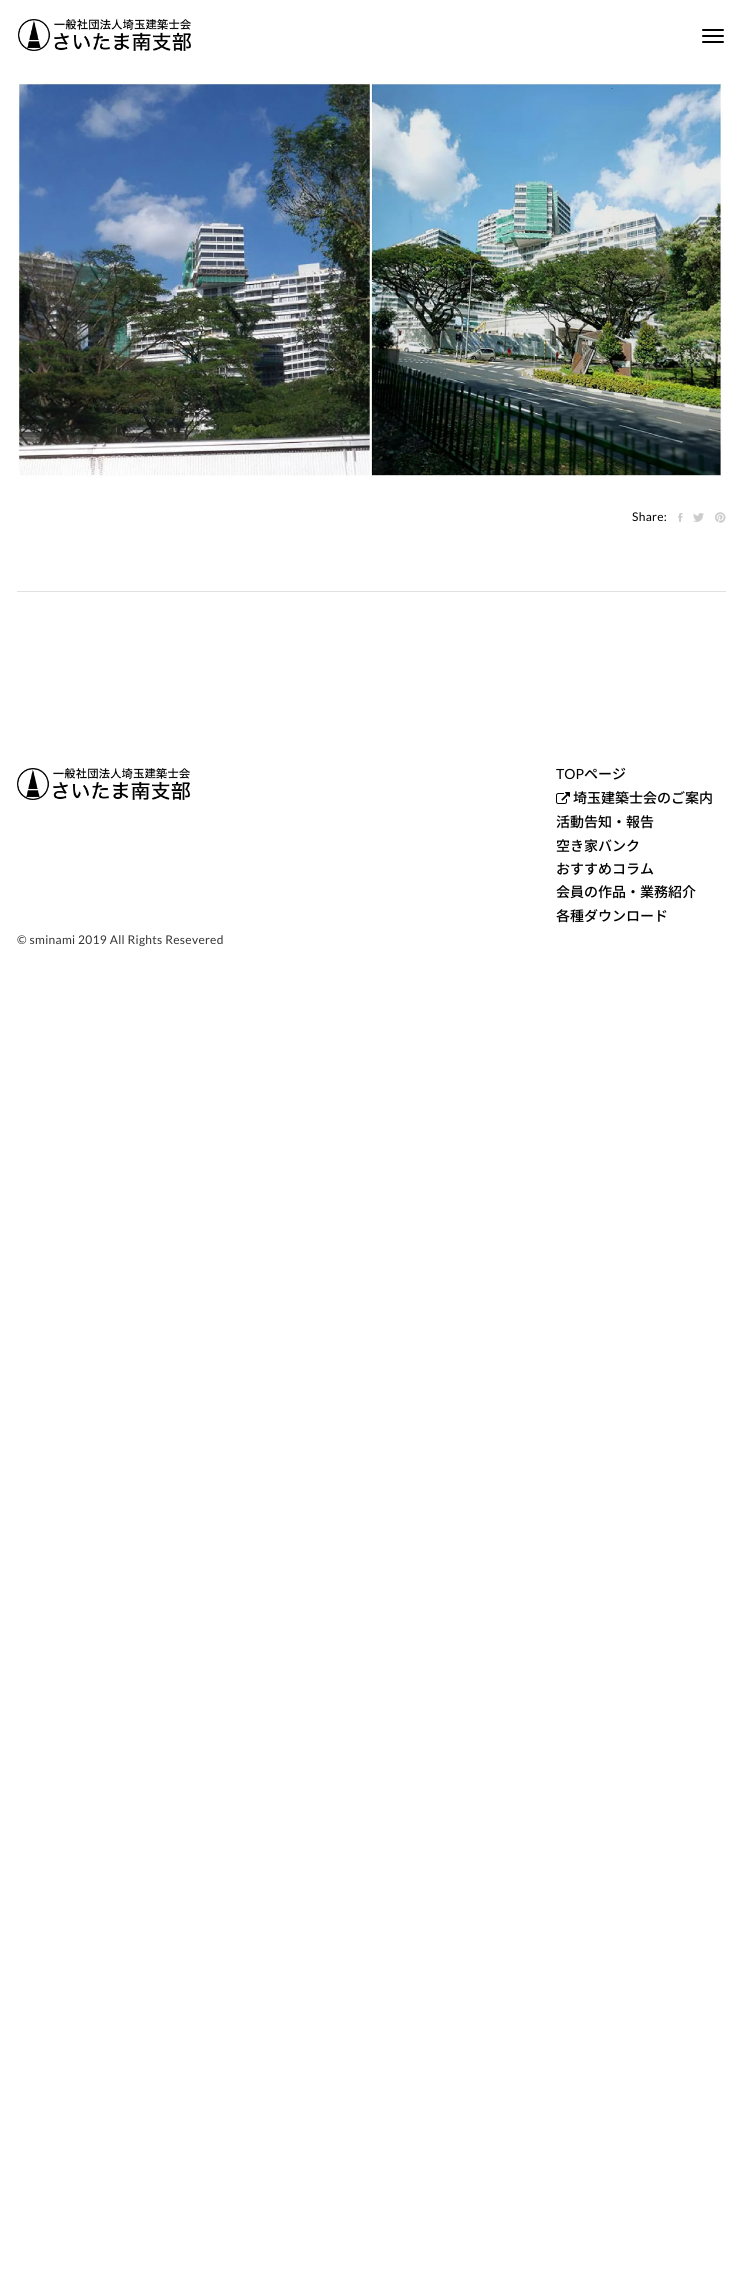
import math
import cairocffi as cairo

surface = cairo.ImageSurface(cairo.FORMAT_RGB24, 743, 2295)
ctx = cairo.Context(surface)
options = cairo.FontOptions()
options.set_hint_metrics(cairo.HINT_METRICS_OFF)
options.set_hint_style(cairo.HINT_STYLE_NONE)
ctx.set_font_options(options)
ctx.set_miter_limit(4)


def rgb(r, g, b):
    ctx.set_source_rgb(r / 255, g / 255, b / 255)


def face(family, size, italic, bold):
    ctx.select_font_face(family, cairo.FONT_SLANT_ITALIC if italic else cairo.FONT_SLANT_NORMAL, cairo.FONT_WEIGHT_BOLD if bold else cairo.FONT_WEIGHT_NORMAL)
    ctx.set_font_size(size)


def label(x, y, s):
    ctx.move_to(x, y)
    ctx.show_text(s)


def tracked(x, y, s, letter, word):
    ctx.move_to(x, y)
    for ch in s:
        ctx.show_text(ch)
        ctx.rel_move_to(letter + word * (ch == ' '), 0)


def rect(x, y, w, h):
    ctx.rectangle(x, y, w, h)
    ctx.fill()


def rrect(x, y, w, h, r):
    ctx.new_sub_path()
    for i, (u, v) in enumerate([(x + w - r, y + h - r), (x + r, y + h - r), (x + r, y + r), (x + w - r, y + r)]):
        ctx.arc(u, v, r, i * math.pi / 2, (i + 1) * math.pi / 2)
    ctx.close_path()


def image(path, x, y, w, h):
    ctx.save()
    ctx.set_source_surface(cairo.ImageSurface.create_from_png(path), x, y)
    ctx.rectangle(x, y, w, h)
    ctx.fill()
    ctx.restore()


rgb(255, 255, 255)
ctx.paint()
image('image0.png', 18, 19, 173, 32)
rgb(0, 0, 0)
rrect(702, 29, 22, 2, 1)
ctx.fill()
rrect(702, 35, 22, 2, 1)
ctx.fill()
rrect(702, 41, 22, 2, 1)
ctx.fill()
image('image1.png', 17, 82, 706, 395)
face('Lato', 12, 0, 0)
tracked(632, 521, 'Share:', 0.3, 0)
image('image2.png', 678, 513, 5, 9)
image('image3.png', 693, 513, 11, 9)
image('image4.png', 715, 512, 11, 11)
rgb(225, 225, 225)
rect(17, 591, 709, 1)
image('image5.png', 17, 768, 173, 32)
face('Lato', 14, 0, 0)
rgb(0, 0, 0)
label(556, 779, 'TOP')
face('Noto Sans JP Medium', 14, 0, 0)
label(584, 779, 'ページ')
image('image6.png', 556, 792, 14, 12)
label(573, 803, '埼玉建築士会のご案内')
label(556, 827, '活動告知・報告')
label(556, 851, '空き家バンク')
label(556, 874, 'おすすめコラム')
label(556, 897, '会員の作品・業務紹介')
label(556, 921, '各種ダウンロード')
face('Lato', 12, 0, 0)
rgb(51, 51, 51)
tracked(17, 944, '© sminami 2019 All Rights Resevered', 0.3, 0)
surface.write_to_png('render.png')
